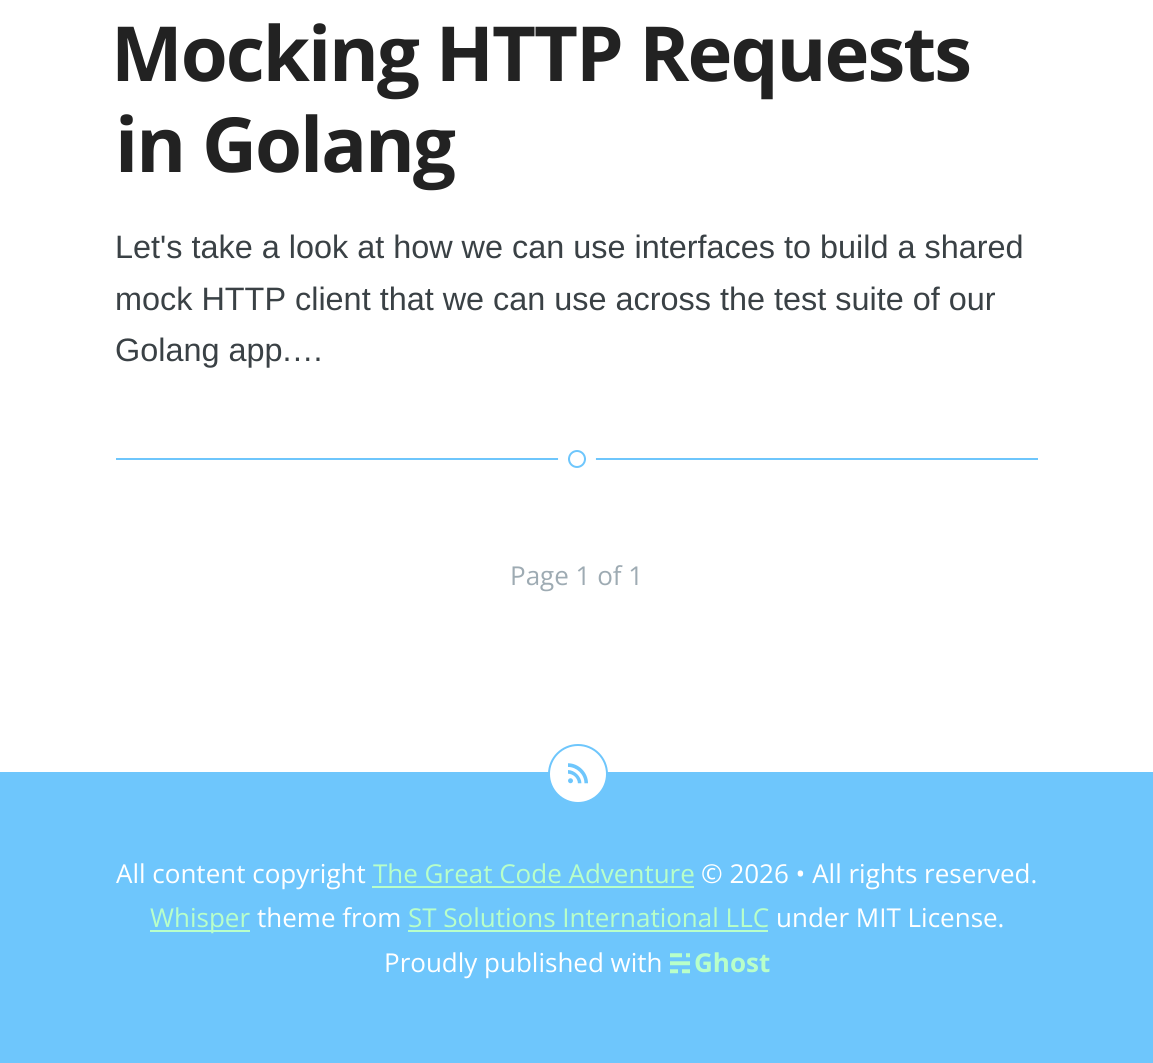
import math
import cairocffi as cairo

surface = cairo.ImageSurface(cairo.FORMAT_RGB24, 1153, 1063)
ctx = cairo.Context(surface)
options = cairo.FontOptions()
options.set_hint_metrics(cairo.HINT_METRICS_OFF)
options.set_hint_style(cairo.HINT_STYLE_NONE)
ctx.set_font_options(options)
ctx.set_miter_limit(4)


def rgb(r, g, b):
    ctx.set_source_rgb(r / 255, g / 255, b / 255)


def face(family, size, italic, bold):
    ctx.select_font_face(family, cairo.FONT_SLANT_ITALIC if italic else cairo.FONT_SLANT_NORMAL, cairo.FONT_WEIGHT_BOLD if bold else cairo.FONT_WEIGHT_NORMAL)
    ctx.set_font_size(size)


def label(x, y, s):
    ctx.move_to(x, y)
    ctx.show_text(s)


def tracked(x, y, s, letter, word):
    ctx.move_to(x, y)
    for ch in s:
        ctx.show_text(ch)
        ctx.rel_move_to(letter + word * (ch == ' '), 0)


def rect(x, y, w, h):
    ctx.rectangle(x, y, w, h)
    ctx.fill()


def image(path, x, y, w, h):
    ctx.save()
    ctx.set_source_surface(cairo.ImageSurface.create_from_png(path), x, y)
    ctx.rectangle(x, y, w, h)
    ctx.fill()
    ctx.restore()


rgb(255, 255, 255)
ctx.paint()
rgb(110, 198, 252)
rect(116, 458, 922, 2)
face('Open Sans', 76, 0, 1)
rgb(34, 34, 34)
tracked(111, 81, 'Mocking HTTP Requests', -2, 0)
tracked(115, 172, 'in Golang', -2, 0)
face('Liberation Sans', 32.4, 0, 0)
rgb(58, 65, 69)
label(115, 258, 'Let\'s take a look at how we can use interfaces to build a shared')
label(115, 310, 'mock HTTP client that we can use across the test suite of our')
label(115, 361, 'Golang app.…')
ctx.new_path()
ctx.arc(577, 459, 14, 0, 2 * math.pi)
rgb(255, 255, 255)
ctx.set_line_width(10)
ctx.stroke()
ctx.arc(577, 459, 8, 0, 2 * math.pi)
ctx.fill_preserve()
rgb(110, 198, 252)
ctx.set_line_width(2)
ctx.stroke()
face('Open Sans', 26, 0, 0)
rgb(158, 171, 179)
label(510, 585, 'Page 1 of 1')
rgb(110, 198, 252)
rect(0, 772, 1153, 291)
rgb(255, 255, 255)
ctx.new_path()
ctx.arc(578, 774, 29, 0, 2 * math.pi)
ctx.fill_preserve()
rgb(110, 198, 252)
ctx.stroke()
image('image0.png', 568, 763, 20, 21)
rgb(255, 255, 255)
label(116, 883, 'All content copyright')
rgb(184, 255, 201)
label(373, 883, 'The Great Code Adventure')
rect(372, 886, 322, 2)
rgb(255, 255, 255)
label(701, 883, '© 2026 • All rights reserved.')
rgb(184, 255, 201)
rect(150, 930, 100, 2)
label(150, 927, 'Whisper')
rgb(255, 255, 255)
label(257, 927, 'theme from')
rgb(184, 255, 201)
label(408, 927, 'ST Solutions International LLC')
rect(408, 930, 360, 2)
rgb(255, 255, 255)
label(776, 927, 'under MIT License.')
label(384, 972, 'Proudly published with')
image('image1.png', 670, 953, 20, 21)
face('Open Sans', 26, 0, 1)
rgb(184, 255, 201)
label(694, 972, 'Ghost')
surface.write_to_png('render.png')
